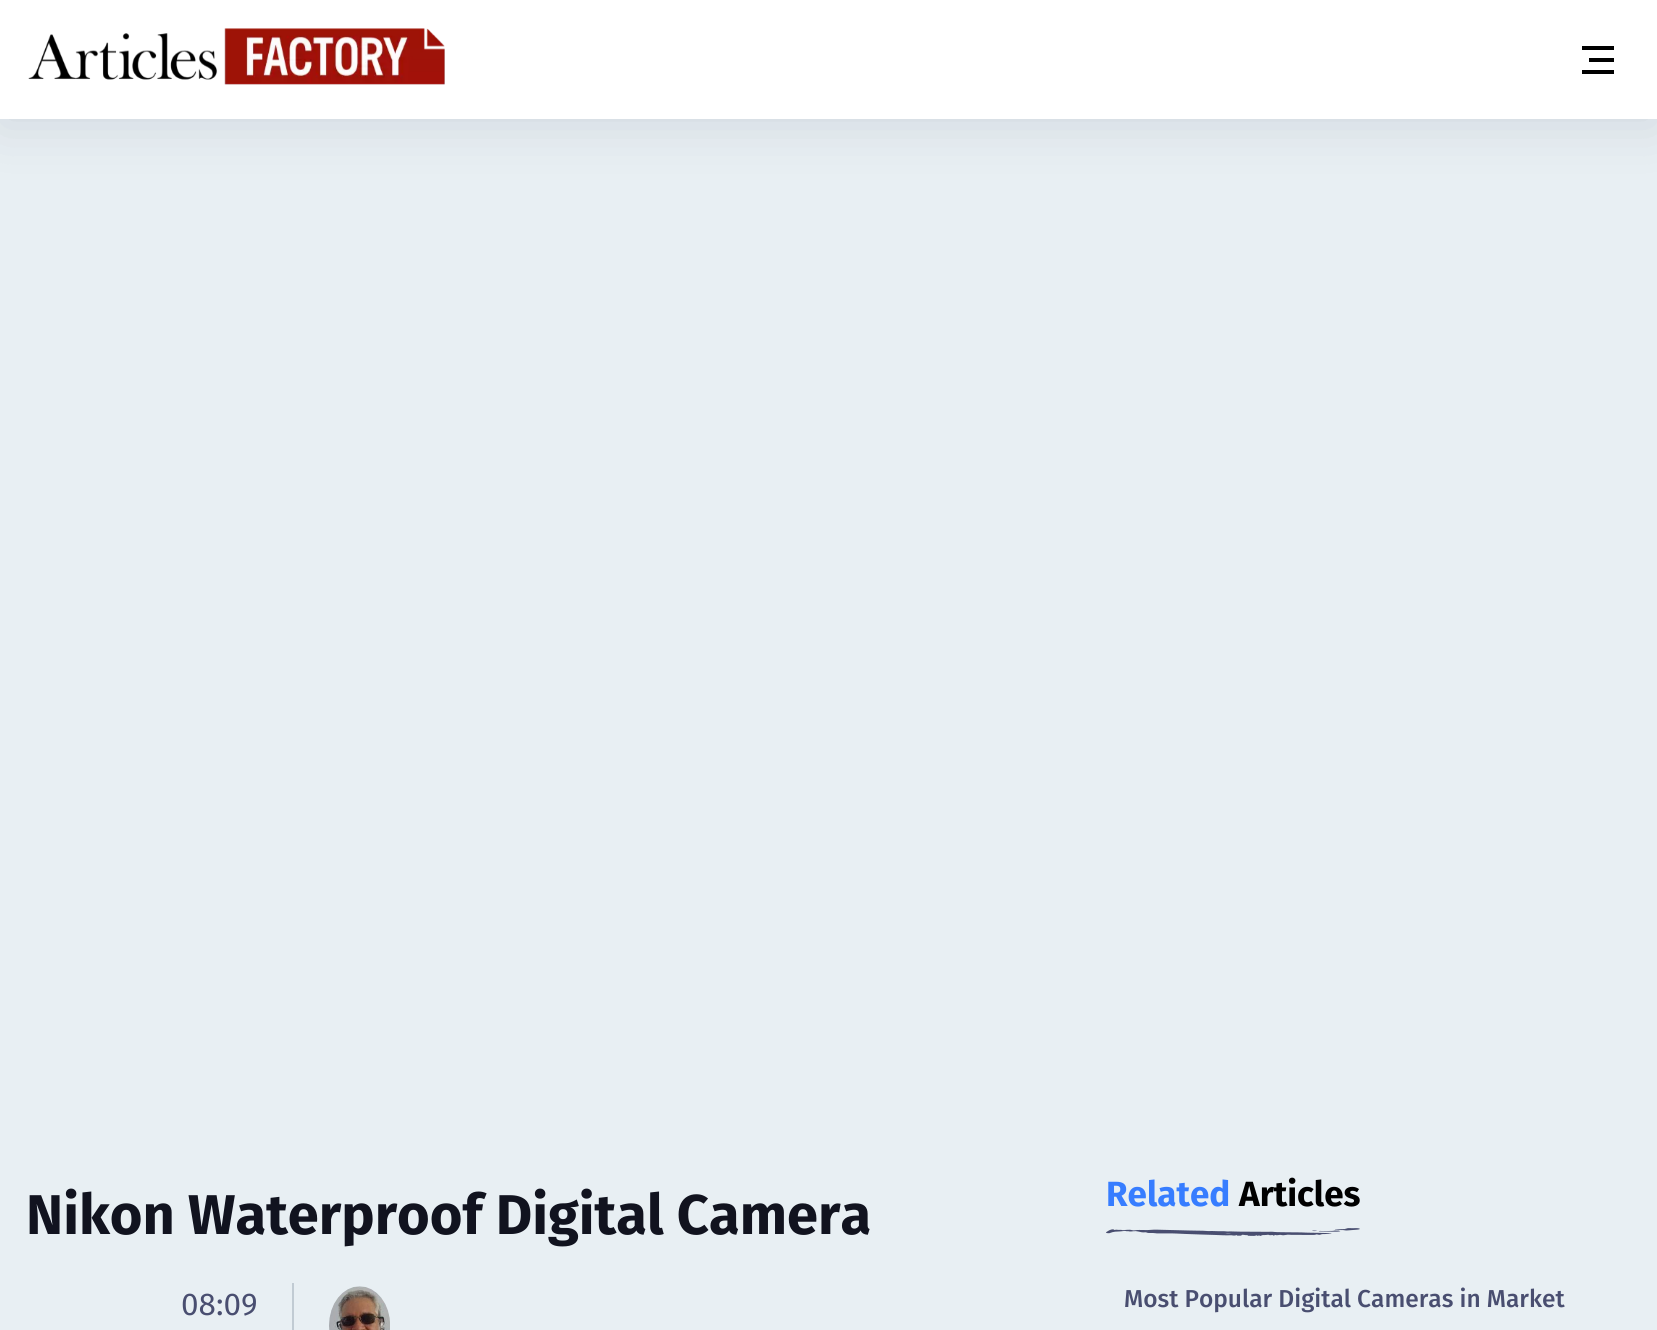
import math
import cairocffi as cairo

surface = cairo.ImageSurface(cairo.FORMAT_RGB24, 1657, 1330)
ctx = cairo.Context(surface)
options = cairo.FontOptions()
options.set_hint_metrics(cairo.HINT_METRICS_OFF)
options.set_hint_style(cairo.HINT_STYLE_NONE)
ctx.set_font_options(options)
ctx.set_miter_limit(4)


def rgb(r, g, b):
    ctx.set_source_rgb(r / 255, g / 255, b / 255)


def face(family, size, italic, bold):
    ctx.select_font_face(family, cairo.FONT_SLANT_ITALIC if italic else cairo.FONT_SLANT_NORMAL, cairo.FONT_WEIGHT_BOLD if bold else cairo.FONT_WEIGHT_NORMAL)
    ctx.set_font_size(size)


def label(x, y, s):
    ctx.move_to(x, y)
    ctx.show_text(s)


def rect(x, y, w, h):
    ctx.rectangle(x, y, w, h)
    ctx.fill()


def rrect(x, y, w, h, r):
    ctx.new_sub_path()
    for i, (u, v) in enumerate([(x + w - r, y + h - r), (x + r, y + h - r), (x + r, y + r), (x + w - r, y + r)]):
        ctx.arc(u, v, r, i * math.pi / 2, (i + 1) * math.pi / 2)
    ctx.close_path()


def soft_shadow(x, y, w, h, r, blur, alpha):
    ctx.push_group_with_content(cairo.CONTENT_ALPHA)
    ctx.set_operator(cairo.OPERATOR_SOURCE)
    for i in range(15, -16, -2):
        e = blur * i / 6
        if min(w, h) + 2 * e > 0:
            ctx.set_source_rgba(0, 0, 0, alpha * math.erfc((i - 1) / 8.5) / 2)
            rrect(x - e, y - e, w + 2 * e, h + 2 * e, max(0, min(r + e + blur * .6, min(w, h) / 2 + e)))
            ctx.fill()
    ctx.mask(ctx.pop_group())


def image(path, x, y, w, h):
    ctx.save()
    ctx.set_source_surface(cairo.ImageSurface.create_from_png(path), x, y)
    ctx.rectangle(x, y, w, h)
    ctx.fill()
    ctx.restore()


rgb(232, 239, 243)
ctx.paint()
rgb(3, 0, 37)
soft_shadow(0, 7, 1657, 119, 0, 26, 0.1)
rgb(255, 255, 255)
rect(0, 0, 1657, 119)
image('image0.png', 28, 28, 417, 57)
rgb(0, 0, 0)
rect(1582, 46, 32, 4)
rect(1589, 58, 25, 4)
rect(1582, 70, 32, 4)
face('Fira Sans', 56, 0, 1)
rgb(17, 19, 31)
label(26, 1234, 'Nikon Waterproof Digital Camera')
face('Fira Sans', 31.5, 0, 0)
rgb(73, 78, 112)
label(181, 1315, '08:09')
rgb(193, 203, 211)
rect(292, 1283, 2, 47)
image('image1.png', 329, 1286, 61, 44)
face('Fira Sans', 35, 0, 1)
rgb(55, 125, 255)
label(1106, 1206, 'Related')
rgb(0, 0, 0)
label(1239, 1206, 'Articles')
image('image2.png', 1106, 1228, 254, 8)
face('Fira Sans Medium', 24.5, 0, 0)
rgb(73, 78, 112)
label(1124, 1307, 'Most Popular Digital Cameras in Market')
surface.write_to_png('render.png')
